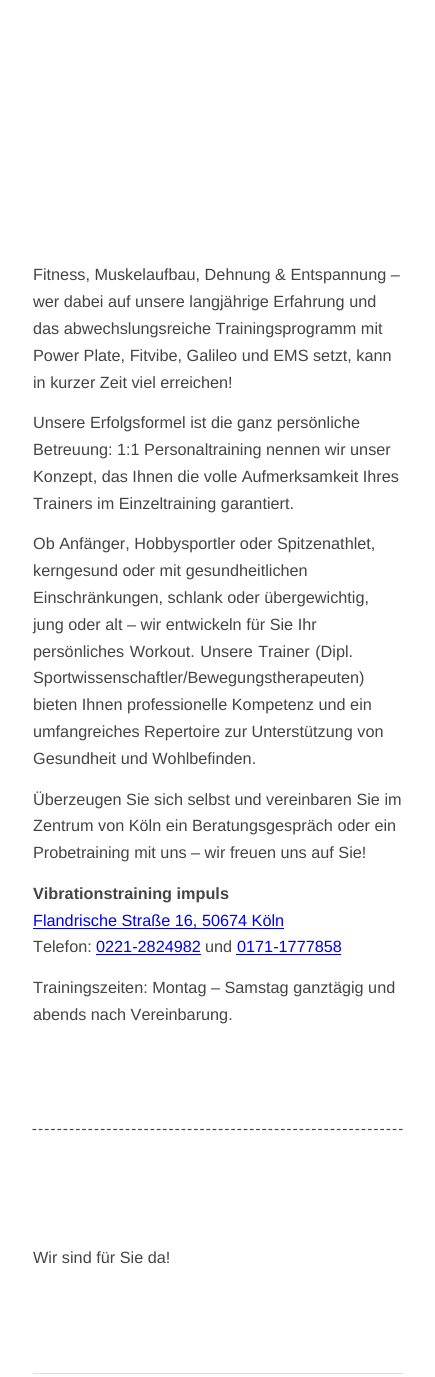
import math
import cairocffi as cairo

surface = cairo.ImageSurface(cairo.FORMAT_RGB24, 435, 1377)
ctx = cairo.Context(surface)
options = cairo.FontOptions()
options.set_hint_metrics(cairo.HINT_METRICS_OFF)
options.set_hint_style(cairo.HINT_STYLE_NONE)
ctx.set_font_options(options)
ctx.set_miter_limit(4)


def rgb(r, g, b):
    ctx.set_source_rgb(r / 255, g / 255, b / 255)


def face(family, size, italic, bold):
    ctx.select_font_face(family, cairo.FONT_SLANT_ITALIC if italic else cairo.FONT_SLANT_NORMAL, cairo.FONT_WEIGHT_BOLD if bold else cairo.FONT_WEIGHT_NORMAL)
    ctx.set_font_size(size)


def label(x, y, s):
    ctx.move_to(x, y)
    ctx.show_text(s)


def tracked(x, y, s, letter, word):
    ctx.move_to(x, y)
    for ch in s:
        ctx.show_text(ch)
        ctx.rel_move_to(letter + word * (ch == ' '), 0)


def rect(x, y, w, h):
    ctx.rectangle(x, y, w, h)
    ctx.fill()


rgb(255, 255, 255)
ctx.paint()
face('Liberation Sans', 16.25, 0, 0)
rgb(68, 68, 68)
label(33, 280, 'Fitness, Muskelaufbau, Dehnung & Entspannung –')
label(33, 307, 'wer dabei auf unsere langjährige Erfahrung und')
label(33, 334, 'das abwechslungsreiche Trainingsprogramm mit')
label(33, 361, 'Power Plate, Fitvibe, Galileo und EMS setzt, kann')
label(33, 388, 'in kurzer Zeit viel erreichen!')
label(33, 428, 'Unsere Erfolgsformel ist die ganz persönliche')
label(33, 455, 'Betreuung: 1:1 Personaltraining nennen wir unser')
label(33, 482, 'Konzept, das Ihnen die volle Aufmerksamkeit Ihres')
label(33, 509, 'Trainers im Einzeltraining garantiert.')
label(33, 549, 'Ob Anfänger, Hobbysportler oder Spitzenathlet,')
label(33, 576, 'kerngesund oder mit gesundheitlichen')
label(33, 603, 'Einschränkungen, schlank oder übergewichtig,')
label(33, 630, 'jung oder alt – wir entwickeln für Sie Ihr')
tracked(33, 657, 'persönliches Workout. Unsere Trainer (Dipl.', 0, 1)
label(33, 683, 'Sportwissenschaftler/Bewegungstherapeuten)')
label(33, 710, 'bieten Ihnen professionelle Kompetenz und ein')
label(33, 737, 'umfangreiches Repertoire zur Unterstützung von')
label(33, 764, 'Gesundheit und Wohlbefinden.')
label(33, 805, 'Überzeugen Sie sich selbst und vereinbaren Sie im')
label(33, 831, 'Zentrum von Köln ein Beratungsgespräch oder ein')
label(33, 858, 'Probetraining mit uns – wir freuen uns auf Sie!')
face('Liberation Sans', 16.25, 0, 1)
label(33, 899, 'Vibrationstraining impuls')
rgb(0, 0, 238)
rect(33, 928, 251, 1)
face('Liberation Sans', 16.25, 0, 0)
label(33, 926, 'Flandrische Straße 16, 50674 Köln')
rgb(68, 68, 68)
label(33, 952, 'Telefon:')
rgb(0, 0, 238)
label(96, 952, '0221-2824982')
rect(96, 954, 105, 1)
rgb(68, 68, 68)
label(205, 952, 'und')
rgb(0, 0, 238)
label(237, 952, '0171-1777858')
rect(236, 954, 105, 1)
rgb(68, 68, 68)
label(33, 993, 'Trainingszeiten: Montag – Samstag ganztägig und')
label(33, 1020, 'abends nach Vereinbarung.')
ctx.new_path()
ctx.move_to(32.5, 1129.5)
ctx.line_to(402.5, 1129.5)
ctx.set_line_width(1.2)
ctx.set_dash([3.75, 2.46])
ctx.stroke()
label(33, 1263, 'Wir sind für Sie da!')
rgb(221, 221, 221)
rect(33, 1373, 370, 1)
surface.write_to_png('render.png')
